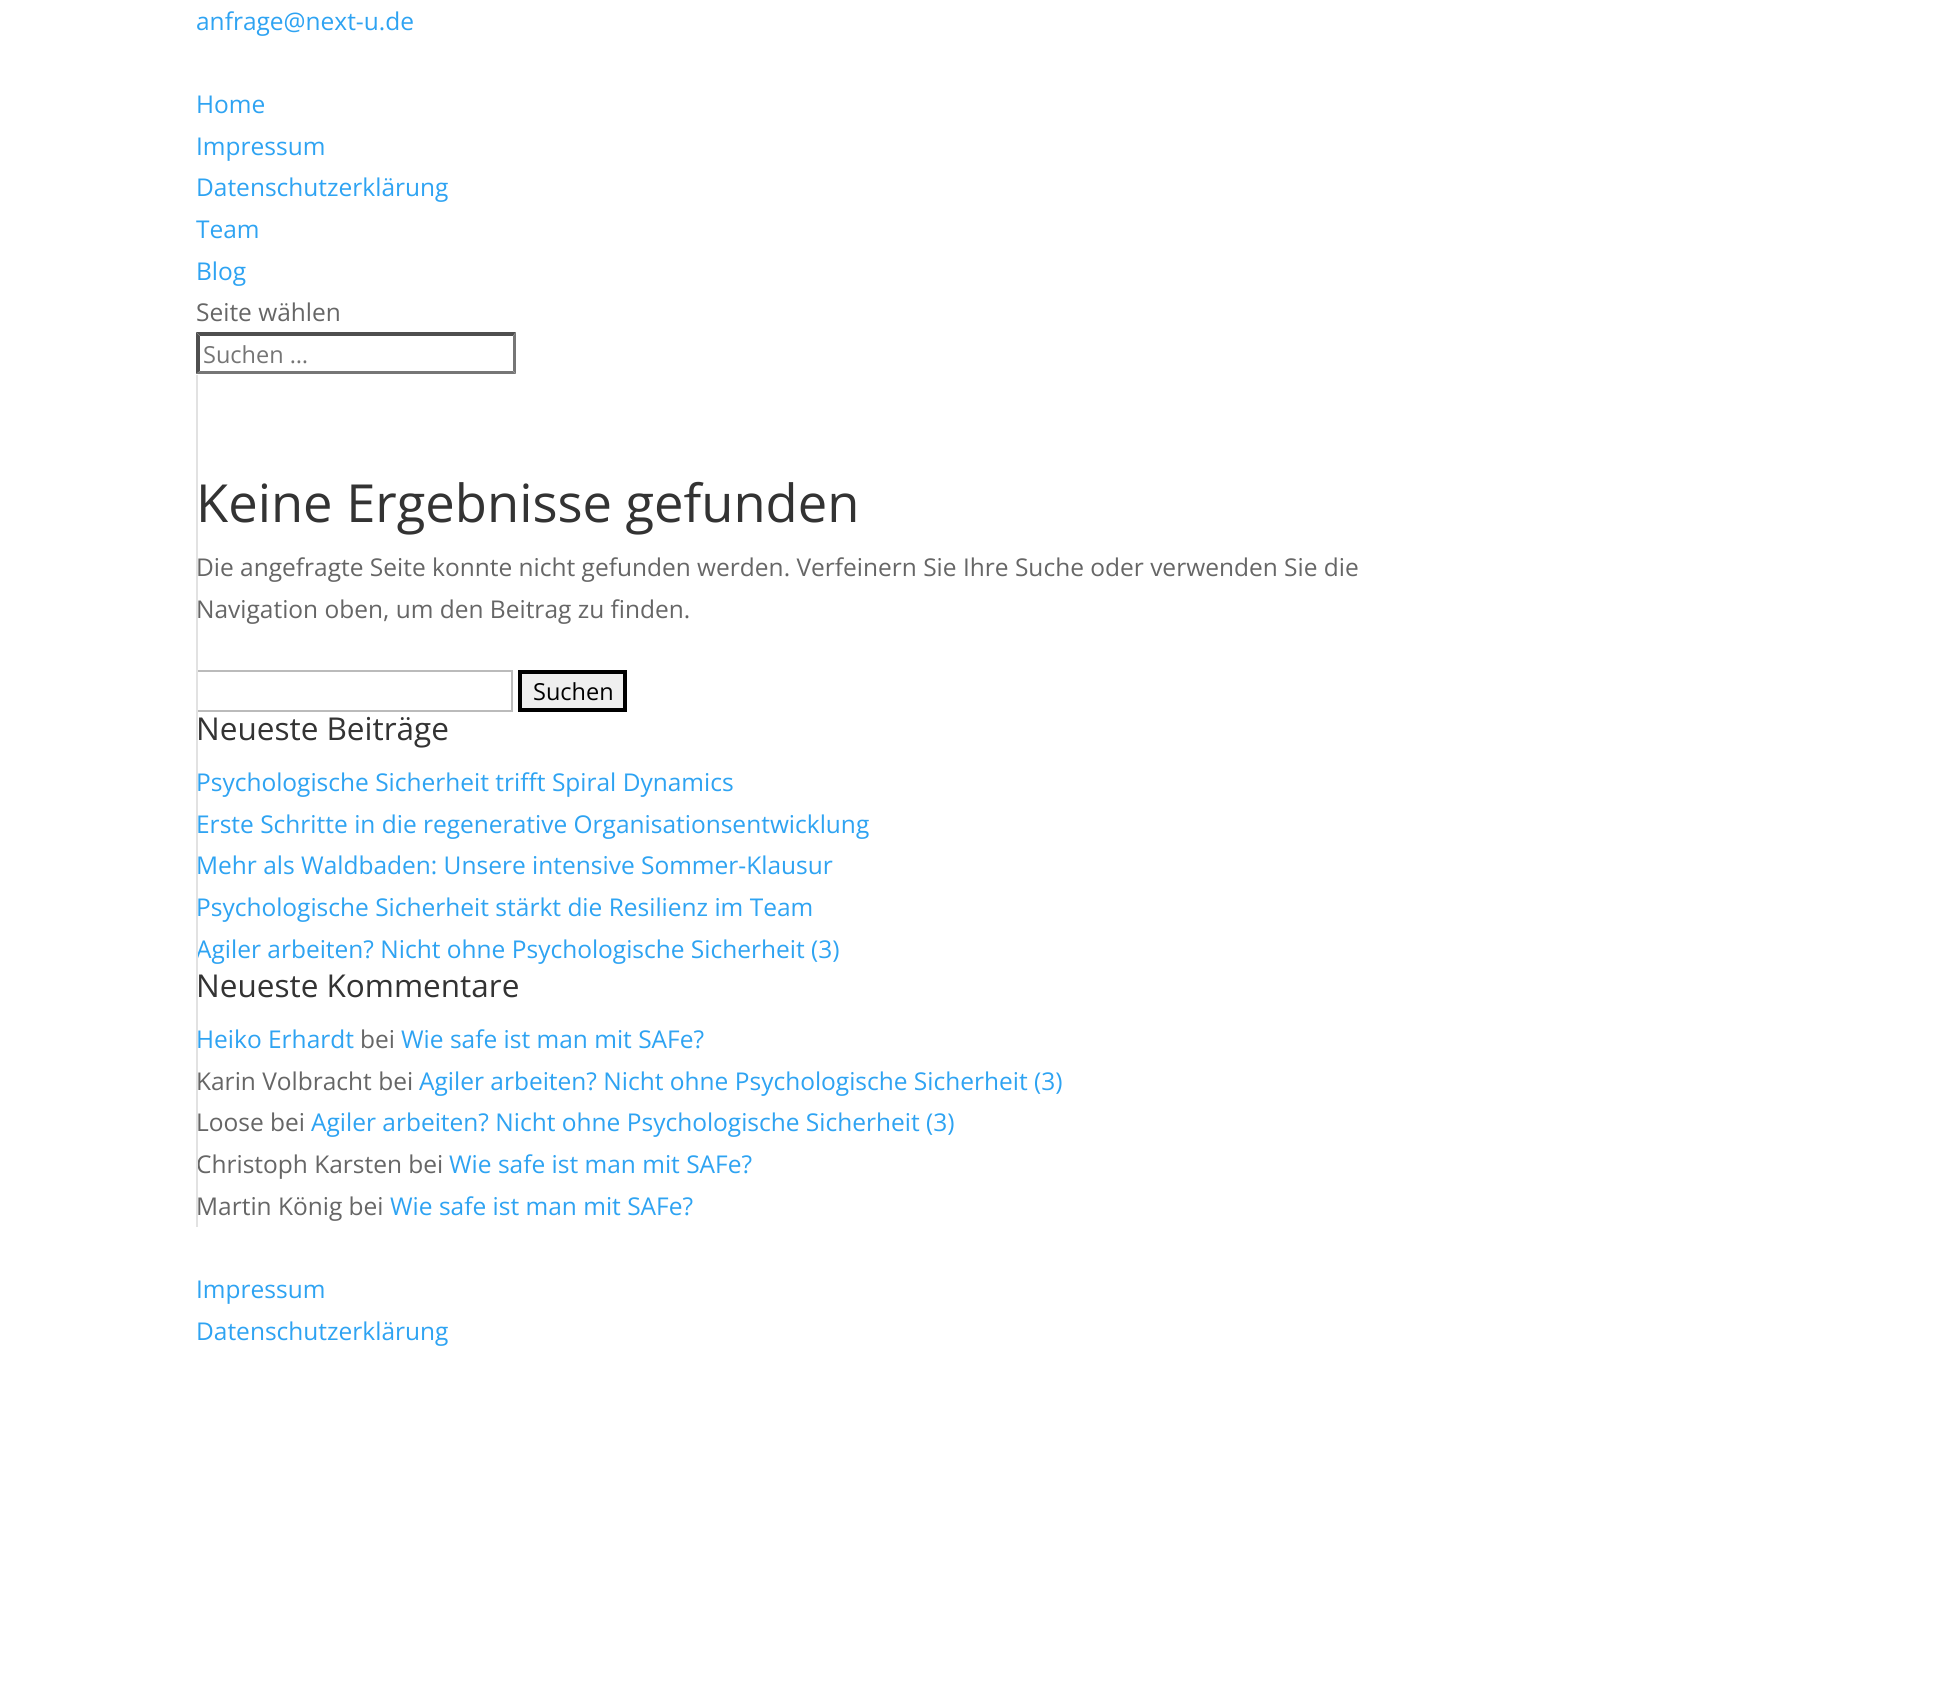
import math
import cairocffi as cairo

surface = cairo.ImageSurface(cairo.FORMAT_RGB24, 1955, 1685)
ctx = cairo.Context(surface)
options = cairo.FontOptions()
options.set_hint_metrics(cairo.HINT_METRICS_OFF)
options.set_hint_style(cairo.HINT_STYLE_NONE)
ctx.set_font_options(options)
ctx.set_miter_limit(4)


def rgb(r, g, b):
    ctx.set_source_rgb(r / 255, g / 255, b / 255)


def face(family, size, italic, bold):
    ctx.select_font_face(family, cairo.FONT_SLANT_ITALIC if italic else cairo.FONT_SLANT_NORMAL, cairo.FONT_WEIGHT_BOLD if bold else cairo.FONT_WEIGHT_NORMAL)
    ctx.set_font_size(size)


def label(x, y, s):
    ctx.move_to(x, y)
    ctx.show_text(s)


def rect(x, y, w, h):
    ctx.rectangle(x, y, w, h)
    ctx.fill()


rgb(255, 255, 255)
ctx.paint()
face('Open Sans', 24.5, 0, 0)
rgb(46, 163, 242)
label(196, 30, 'anfrage@next-u.de')
label(196, 113, 'Home')
label(196, 155, 'Impressum')
label(196, 196, 'Datenschutzerklärung')
label(196, 238, 'Team')
label(196, 280, 'Blog')
rgb(102, 102, 102)
label(196, 321, 'Seite wählen')
rgb(79, 79, 79)
ctx.new_path()
ctx.move_to(196, 332)
ctx.line_to(516, 332)
ctx.line_to(513, 336)
ctx.line_to(200, 336)
ctx.close_path()
ctx.fill()
rgb(118, 118, 118)
ctx.new_path()
ctx.move_to(516, 332)
ctx.line_to(516, 374)
ctx.line_to(513, 371)
ctx.line_to(513, 336)
ctx.close_path()
ctx.fill()
ctx.new_path()
ctx.move_to(516, 374)
ctx.line_to(196, 374)
ctx.line_to(200, 371)
ctx.line_to(513, 371)
ctx.close_path()
ctx.fill()
rgb(79, 79, 79)
ctx.new_path()
ctx.move_to(196, 374)
ctx.line_to(196, 332)
ctx.line_to(200, 336)
ctx.line_to(200, 371)
ctx.close_path()
ctx.fill()
face('Open Sans', 23.5, 0, 0)
rgb(117, 117, 117)
label(203, 363, 'Suchen …')
ctx.rectangle(197, 671, 315, 40)
rgb(187, 187, 187)
ctx.stroke()
face('Open Sans', 24.5, 0, 0)
rgb(46, 163, 242)
label(196, 958, 'Agiler arbeiten? Nicht ohne Psychologische Sicherheit (3)')
rgb(102, 102, 102)
label(196, 1173, 'Christoph Karsten bei')
rgb(226, 226, 226)
rect(196, 375, 2, 852)
face('Open Sans', 52.5, 0, 0)
rgb(51, 51, 51)
label(196, 522, 'Keine Ergebnisse gefunden')
face('Open Sans', 24.5, 0, 0)
rgb(102, 102, 102)
label(196, 576, 'Die angefragte Seite konnte nicht gefunden werden. Verfeinern Sie Ihre Suche oder verwenden Sie die')
label(196, 618, 'Navigation oben, um den Beitrag zu finden.')
rgb(239, 239, 239)
ctx.rectangle(520, 672, 105, 38)
ctx.fill_preserve()
rgb(0, 0, 0)
ctx.set_line_width(4)
ctx.stroke()
face('Open Sans', 23.5, 0, 0)
label(533, 700, 'Suchen')
face('Open Sans', 31.5, 0, 0)
rgb(51, 51, 51)
label(196, 740, 'Neueste Beiträge')
face('Open Sans', 24.5, 0, 0)
rgb(46, 163, 242)
label(196, 791, 'Psychologische Sicherheit trifft Spiral Dynamics')
label(196, 833, 'Erste Schritte in die regenerative Organisationsentwicklung')
label(196, 874, 'Mehr als Waldbaden: Unsere intensive Sommer-Klausur')
label(196, 916, 'Psychologische Sicherheit stärkt die Resilienz im Team')
face('Open Sans', 31.5, 0, 0)
rgb(51, 51, 51)
label(196, 997, 'Neueste Kommentare')
face('Open Sans', 24.5, 0, 0)
rgb(46, 163, 242)
label(196, 1048, 'Heiko Erhardt')
rgb(102, 102, 102)
label(360, 1048, 'bei')
rgb(46, 163, 242)
label(401, 1048, 'Wie safe ist man mit SAFe?')
rgb(102, 102, 102)
label(196, 1090, 'Karin Volbracht bei')
rgb(46, 163, 242)
label(419, 1090, 'Agiler arbeiten? Nicht ohne Psychologische Sicherheit (3)')
rgb(102, 102, 102)
label(196, 1131, 'Loose bei')
rgb(46, 163, 242)
label(311, 1131, 'Agiler arbeiten? Nicht ohne Psychologische Sicherheit (3)')
label(449, 1173, 'Wie safe ist man mit SAFe?')
rgb(102, 102, 102)
label(196, 1215, 'Martin König bei')
rgb(46, 163, 242)
label(390, 1215, 'Wie safe ist man mit SAFe?')
label(196, 1298, 'Impressum')
label(196, 1340, 'Datenschutzerklärung')
surface.write_to_png('render.png')
